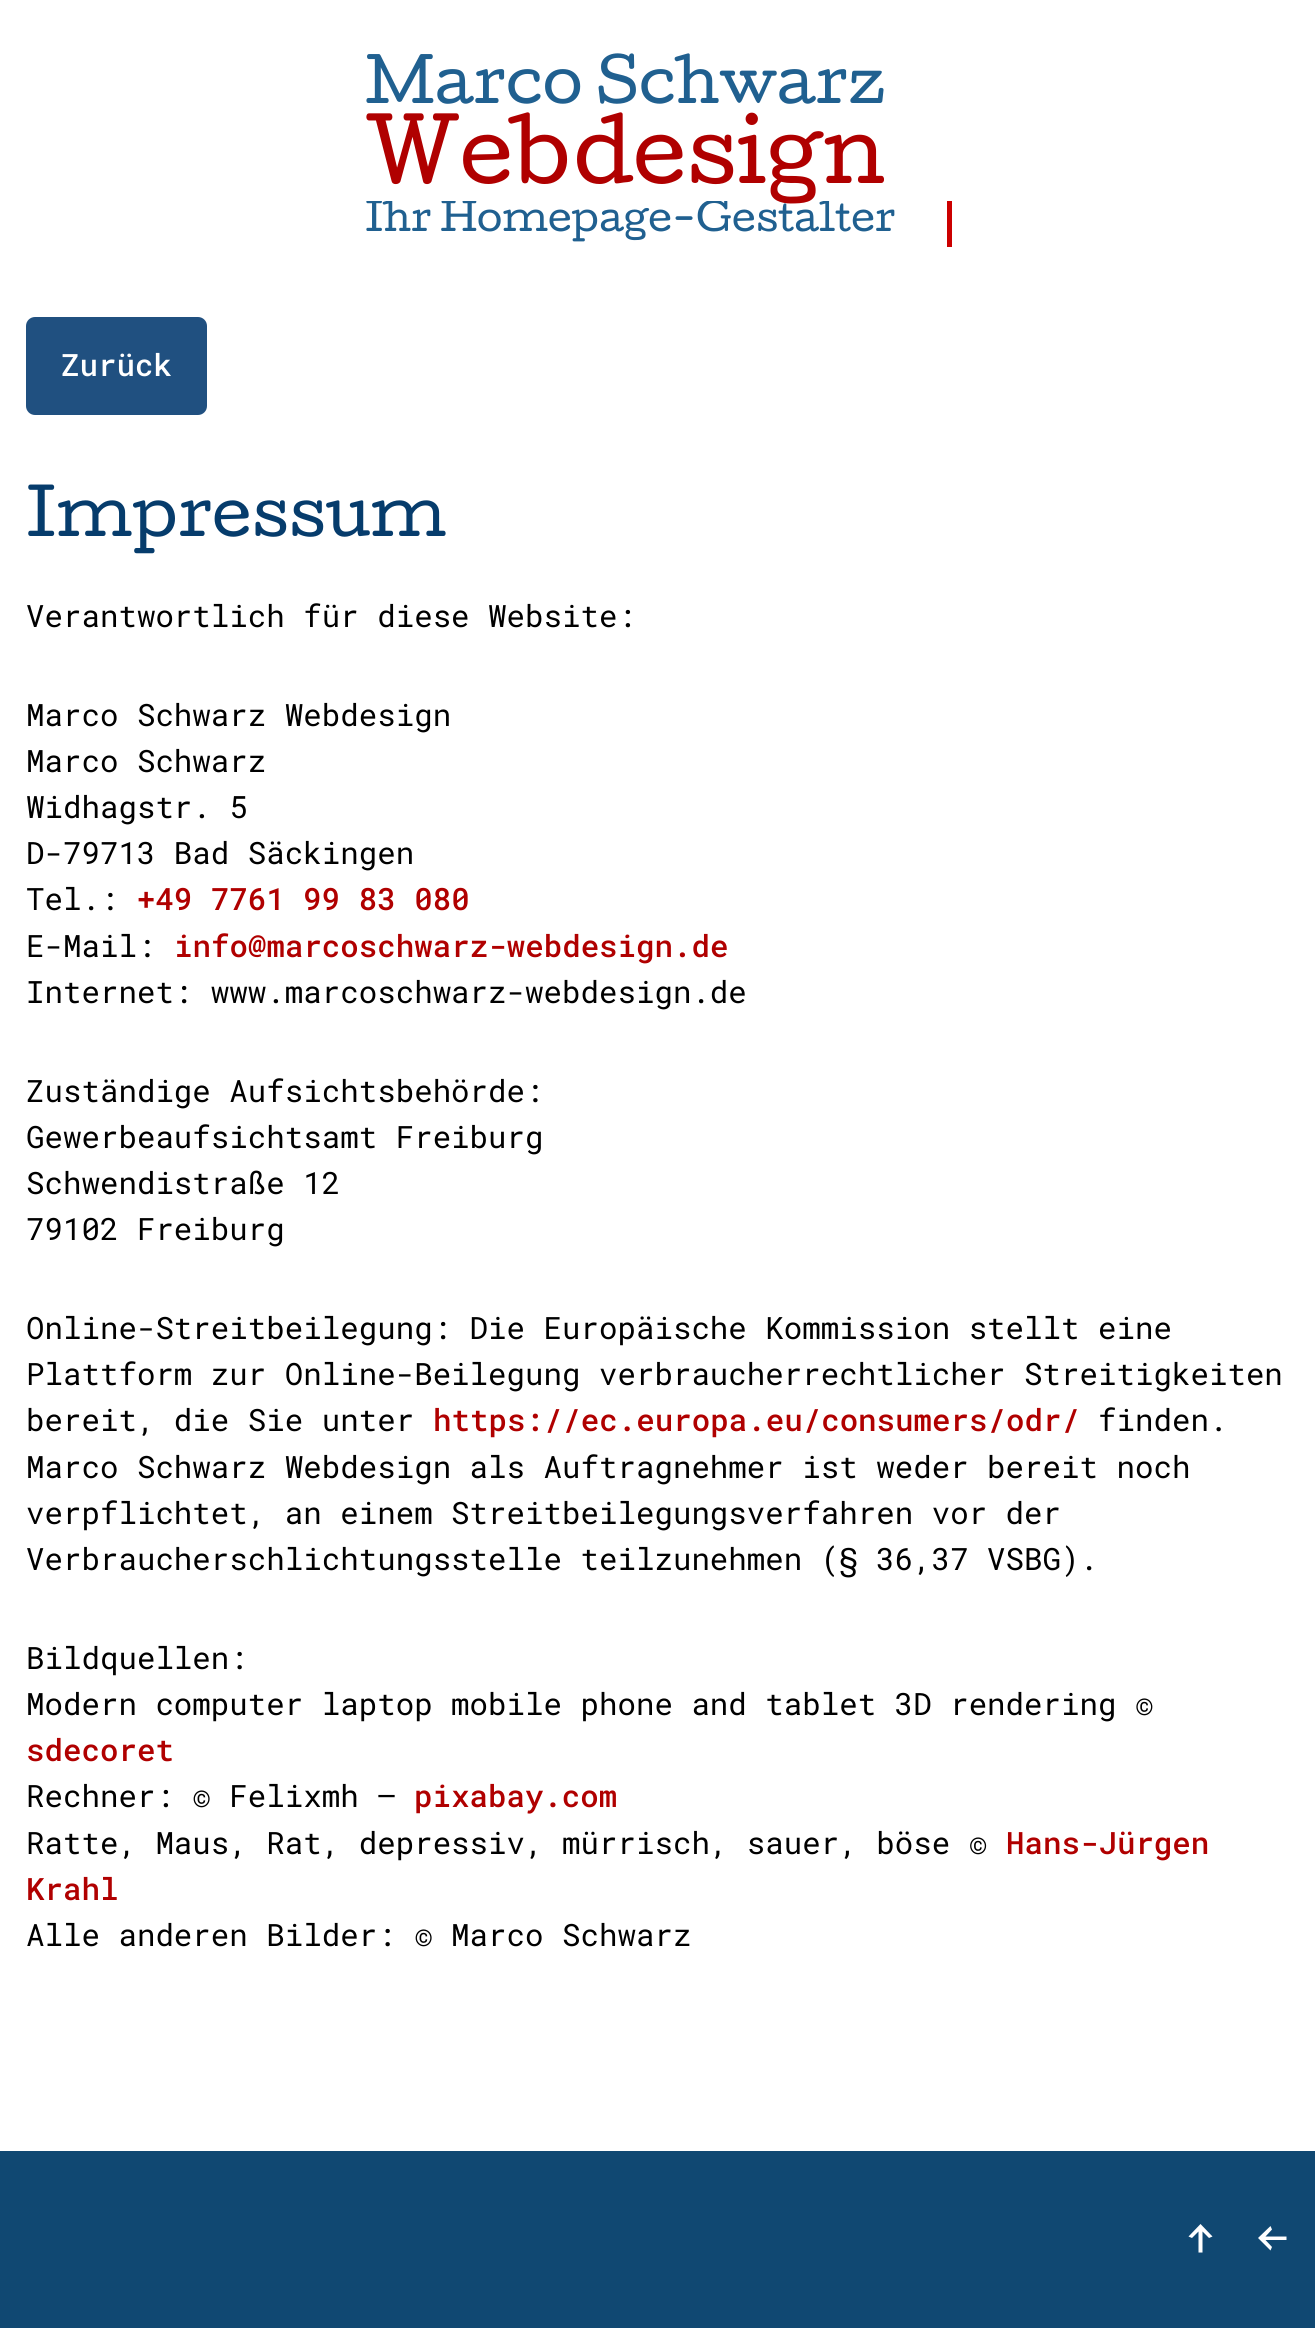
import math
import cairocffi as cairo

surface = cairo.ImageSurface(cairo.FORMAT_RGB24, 1315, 2328)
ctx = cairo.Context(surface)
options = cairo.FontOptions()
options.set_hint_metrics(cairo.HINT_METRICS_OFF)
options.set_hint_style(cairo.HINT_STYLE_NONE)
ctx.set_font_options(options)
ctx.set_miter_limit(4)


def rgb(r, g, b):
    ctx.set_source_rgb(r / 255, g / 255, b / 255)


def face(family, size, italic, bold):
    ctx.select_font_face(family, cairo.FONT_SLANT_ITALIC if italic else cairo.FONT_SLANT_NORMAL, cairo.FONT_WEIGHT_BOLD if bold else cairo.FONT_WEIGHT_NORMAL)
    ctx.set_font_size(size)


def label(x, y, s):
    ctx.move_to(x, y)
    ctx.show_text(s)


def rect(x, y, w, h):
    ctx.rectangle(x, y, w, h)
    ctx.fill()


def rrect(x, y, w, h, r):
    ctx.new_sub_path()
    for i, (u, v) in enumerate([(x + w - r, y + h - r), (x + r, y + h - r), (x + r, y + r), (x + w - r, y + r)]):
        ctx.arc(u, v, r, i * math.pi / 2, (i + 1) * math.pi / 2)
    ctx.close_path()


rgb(255, 255, 255)
ctx.paint()
face('Cutive', 58.5, 0, 0)
rgb(32, 96, 144)
label(365, 103, 'Marco Schwarz')
face('Cutive', 83.25, 0, 0)
rgb(176, 0, 0)
label(365, 183, 'Webdesign')
rgb(204, 0, 0)
rect(947, 201, 5, 46)
ctx.save()
ctx.rectangle(366, 201, 581, 46)
ctx.clip()
face('Cutive', 37, 0, 0)
rgb(32, 96, 144)
label(365, 231, 'Ihr Homepage-Gestalter')
ctx.restore()
rgb(32, 80, 128)
rrect(26, 317, 181, 98, 9)
ctx.fill()
face('Roboto Mono Medium', 30.8, 0, 0)
rgb(255, 255, 255)
label(61, 376, 'Zurück')
face('Cutive', 61.5, 0, 0)
rgb(6, 60, 108)
label(26, 536, 'Impressum')
face('Roboto Mono', 30.8, 0, 0)
rgb(0, 0, 0)
label(26, 627, 'Verantwortlich für diese Website:')
label(26, 726, 'Marco Schwarz Webdesign')
label(26, 772, 'Marco Schwarz')
label(26, 818, 'Widhagstr. 5')
label(26, 864, 'D-79713 Bad Säckingen')
label(26, 910, 'Tel.:')
face('Roboto Mono Medium', 30.8, 0, 0)
rgb(176, 0, 0)
label(137, 910, '+49 7761 99 83 080')
face('Roboto Mono', 30.8, 0, 0)
rgb(0, 0, 0)
label(26, 957, 'E-Mail:')
face('Roboto Mono Medium', 30.8, 0, 0)
rgb(176, 0, 0)
label(174, 957, 'info@marcoschwarz-webdesign.de')
face('Roboto Mono', 30.8, 0, 0)
rgb(0, 0, 0)
label(26, 1003, 'Internet: www.marcoschwarz-webdesign.de')
label(26, 1102, 'Zuständige Aufsichtsbehörde:')
label(26, 1148, 'Gewerbeaufsichtsamt Freiburg')
label(26, 1194, 'Schwendistraße 12')
label(26, 1240, '79102 Freiburg')
label(26, 1339, 'Online-Streitbeilegung: Die Europäische Kommission stellt eine')
label(26, 1385, 'Plattform zur Online-Beilegung verbraucherrechtlicher Streitigkeiten')
label(26, 1431, 'bereit, die Sie unter')
face('Roboto Mono Medium', 30.8, 0, 0)
rgb(176, 0, 0)
label(433, 1431, 'https://ec.europa.eu/consumers/odr/')
face('Roboto Mono', 30.8, 0, 0)
rgb(0, 0, 0)
label(1098, 1431, 'finden.')
label(26, 1478, 'Marco Schwarz Webdesign als Auftragnehmer ist weder bereit noch')
label(26, 1524, 'verpflichtet, an einem Streitbeilegungsverfahren vor der')
label(26, 1570, 'Verbraucherschlichtungsstelle teilzunehmen (§ 36,37 VSBG).')
label(26, 1669, 'Bildquellen:')
label(26, 1715, 'Modern computer laptop mobile phone and tablet 3D rendering ©')
face('Roboto Mono Medium', 30.8, 0, 0)
rgb(176, 0, 0)
label(26, 1761, 'sdecoret')
face('Roboto Mono', 30.8, 0, 0)
rgb(0, 0, 0)
label(26, 1807, 'Rechner: © Felixmh –')
face('Roboto Mono Medium', 30.8, 0, 0)
rgb(176, 0, 0)
label(414, 1807, 'pixabay.com')
face('Roboto Mono', 30.8, 0, 0)
rgb(0, 0, 0)
label(26, 1854, 'Ratte, Maus, Rat, depressiv, mürrisch, sauer, böse ©')
face('Roboto Mono Medium', 30.8, 0, 0)
rgb(176, 0, 0)
label(1006, 1854, 'Hans-Jürgen')
label(26, 1900, 'Krahl')
face('Roboto Mono', 30.8, 0, 0)
rgb(0, 0, 0)
label(26, 1946, 'Alle anderen Bilder: © Marco Schwarz')
rgb(16, 72, 114)
rect(0, 2151, 1315, 177)
rgb(255, 255, 255)
ctx.new_path()
ctx.move_to(1202.5, 2252.5)
ctx.line_to(1198.5, 2252.5)
ctx.line_to(1198.5, 2231.5)
ctx.line_to(1192, 2238)
ctx.line_to(1188.5, 2236.5)
ctx.line_to(1200.5, 2224)
ctx.line_to(1212.5, 2236.5)
ctx.line_to(1209, 2238)
ctx.line_to(1202.5, 2231.5)
ctx.close_path()
ctx.fill()
ctx.new_path()
ctx.move_to(1286.5, 2236.5)
ctx.line_to(1286.5, 2240)
ctx.line_to(1265.5, 2240)
ctx.line_to(1272, 2247)
ctx.line_to(1270.5, 2250.5)
ctx.line_to(1258, 2238)
ctx.line_to(1270.5, 2226)
ctx.line_to(1272, 2229.5)
ctx.line_to(1265.5, 2236.5)
ctx.close_path()
ctx.fill()
surface.write_to_png('render.png')
